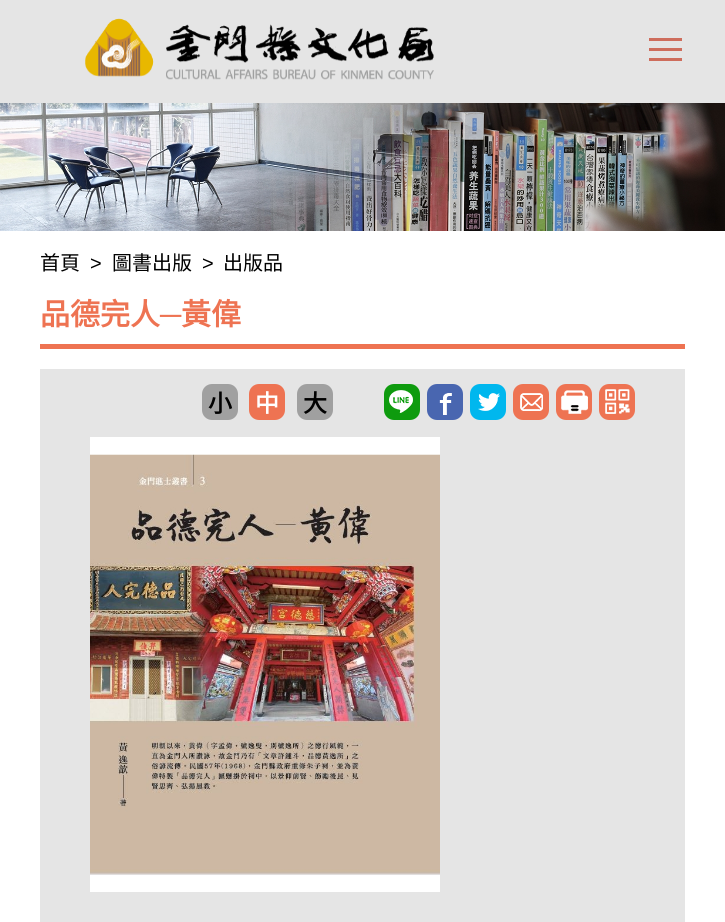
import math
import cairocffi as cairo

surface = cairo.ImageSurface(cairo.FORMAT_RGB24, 725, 922)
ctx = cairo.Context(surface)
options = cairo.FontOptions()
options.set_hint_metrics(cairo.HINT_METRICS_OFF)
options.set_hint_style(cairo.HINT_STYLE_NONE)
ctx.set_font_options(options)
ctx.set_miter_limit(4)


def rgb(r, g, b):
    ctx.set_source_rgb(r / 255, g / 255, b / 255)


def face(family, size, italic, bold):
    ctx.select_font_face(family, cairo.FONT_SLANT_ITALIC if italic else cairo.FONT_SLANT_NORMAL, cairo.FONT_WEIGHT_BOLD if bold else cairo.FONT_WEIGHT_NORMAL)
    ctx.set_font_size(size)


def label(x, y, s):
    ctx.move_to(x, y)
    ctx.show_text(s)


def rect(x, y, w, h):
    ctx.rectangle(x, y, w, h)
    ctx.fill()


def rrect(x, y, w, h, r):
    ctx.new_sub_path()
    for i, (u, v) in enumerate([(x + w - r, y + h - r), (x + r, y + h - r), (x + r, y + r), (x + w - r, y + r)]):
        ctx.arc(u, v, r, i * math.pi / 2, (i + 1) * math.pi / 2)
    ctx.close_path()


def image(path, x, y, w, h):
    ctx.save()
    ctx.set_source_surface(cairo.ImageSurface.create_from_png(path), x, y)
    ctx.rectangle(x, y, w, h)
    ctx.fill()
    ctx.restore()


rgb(255, 255, 255)
ctx.paint()
rgb(229, 229, 229)
rect(0, 0, 725, 103)
image('image0.png', 85, 18, 349, 62)
rgb(206, 109, 92)
rect(649, 48, 33, 3)
rect(649, 38, 33, 3)
rect(649, 58, 33, 3)
image('image1.png', 0, 103, 725, 128)
face('Noto Sans CJK TC', 20, 0, 0)
rgb(0, 0, 0)
label(40, 270, '首頁')
face('Liberation Sans', 20, 0, 0)
label(90, 270, '>')
face('Noto Sans CJK TC', 20, 0, 0)
label(112, 270, '圖書出版')
face('Liberation Sans', 20, 0, 0)
label(202, 270, '>')
face('Noto Sans CJK TC', 20, 0, 0)
label(223, 270, '出版品')
rgb(238, 115, 82)
rect(40, 344, 645, 5)
face('Noto Sans CJK TC', 30, 0, 1)
label(40, 325, '品德完人')
face('Liberation Sans', 30, 0, 1)
label(160, 325, '─')
face('Noto Sans CJK TC', 30, 0, 1)
label(181, 325, '黃偉')
rgb(229, 229, 229)
rect(40, 369, 645, 553)
rgb(160, 160, 160)
rrect(202, 384, 36, 36, 10)
ctx.fill()
face('Noto Sans CJK TC', 24, 0, 1)
rgb(0, 0, 0)
label(208, 412, '小')
rgb(238, 115, 82)
rrect(249, 384, 36, 36, 10)
ctx.fill()
rgb(255, 255, 255)
label(255, 412, '中')
rgb(160, 160, 160)
rrect(297, 384, 36, 36, 10)
ctx.fill()
rgb(0, 0, 0)
label(303, 412, '大')
rgb(14, 155, 14)
rrect(384, 384, 36, 36, 10)
ctx.fill()
image('image2.png', 389, 390, 24, 23)
rgb(73, 102, 176)
rrect(427, 384, 36, 36, 10)
ctx.fill()
image('image3.png', 439, 393, 13, 22)
rgb(0, 183, 238)
rrect(470, 384, 36, 36, 10)
ctx.fill()
image('image4.png', 478, 393, 22, 18)
rgb(238, 115, 82)
rrect(513, 384, 36, 36, 10)
ctx.fill()
image('image5.png', 520, 393, 23, 18)
rrect(556, 384, 36, 36, 10)
ctx.fill()
image('image6.png', 561, 390, 27, 24)
rrect(599, 384, 36, 36, 10)
ctx.fill()
image('image7.png', 605, 389, 25, 25)
image('image8.png', 90, 437, 350, 455)
surface.write_to_png('render.png')
